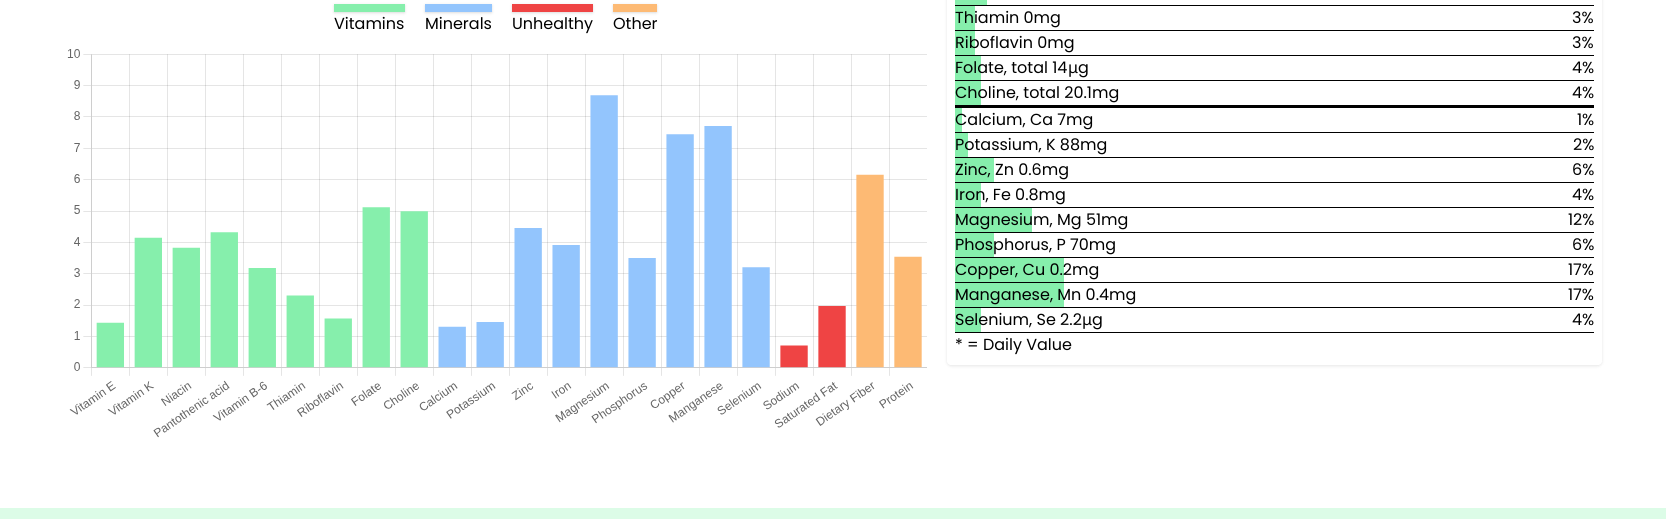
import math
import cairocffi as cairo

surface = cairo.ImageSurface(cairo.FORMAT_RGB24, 1666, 519)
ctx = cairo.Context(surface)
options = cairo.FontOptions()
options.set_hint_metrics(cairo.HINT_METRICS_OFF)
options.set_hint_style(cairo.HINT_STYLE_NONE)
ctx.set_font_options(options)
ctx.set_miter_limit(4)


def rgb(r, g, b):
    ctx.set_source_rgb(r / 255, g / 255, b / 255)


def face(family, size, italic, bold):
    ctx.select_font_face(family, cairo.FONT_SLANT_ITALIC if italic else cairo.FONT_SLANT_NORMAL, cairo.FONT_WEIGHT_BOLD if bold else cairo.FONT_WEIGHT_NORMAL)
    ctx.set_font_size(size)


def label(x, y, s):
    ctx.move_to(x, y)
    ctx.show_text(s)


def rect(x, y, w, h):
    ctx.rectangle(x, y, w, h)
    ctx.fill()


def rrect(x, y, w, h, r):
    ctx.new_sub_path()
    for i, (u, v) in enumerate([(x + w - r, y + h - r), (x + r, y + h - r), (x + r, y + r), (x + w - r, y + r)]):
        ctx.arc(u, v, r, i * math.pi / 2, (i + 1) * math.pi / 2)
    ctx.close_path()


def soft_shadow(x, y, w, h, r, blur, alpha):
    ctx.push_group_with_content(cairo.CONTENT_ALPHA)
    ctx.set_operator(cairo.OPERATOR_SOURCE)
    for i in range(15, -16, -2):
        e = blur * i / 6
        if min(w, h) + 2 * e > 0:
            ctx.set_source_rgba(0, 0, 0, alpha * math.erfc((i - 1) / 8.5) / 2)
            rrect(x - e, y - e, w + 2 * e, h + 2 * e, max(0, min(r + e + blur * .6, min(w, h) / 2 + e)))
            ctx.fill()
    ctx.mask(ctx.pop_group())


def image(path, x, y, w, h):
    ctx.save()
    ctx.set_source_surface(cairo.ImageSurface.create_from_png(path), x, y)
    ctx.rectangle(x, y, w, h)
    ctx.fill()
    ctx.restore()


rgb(255, 255, 255)
ctx.paint()
rgb(0, 0, 0)
soft_shadow(335, 6, 69, 6, 0, 1, 0.1)
soft_shadow(334, 5, 71, 8, 0, 1.5, 0.1)
rgb(134, 239, 172)
rect(334, 4, 71, 8)
face('Poppins', 16, 0, 0)
rgb(0, 0, 0)
label(334, 29, 'Vitamins')
rgb(0, 0, 0)
soft_shadow(426, 6, 65, 6, 0, 1, 0.1)
soft_shadow(425, 5, 67, 8, 0, 1.5, 0.1)
rgb(147, 197, 253)
rect(425, 4, 67, 8)
rgb(0, 0, 0)
label(425, 29, 'Minerals')
rgb(0, 0, 0)
soft_shadow(513, 6, 79, 6, 0, 1, 0.1)
soft_shadow(512, 5, 81, 8, 0, 1.5, 0.1)
rgb(239, 68, 68)
rect(512, 4, 81, 8)
rgb(0, 0, 0)
label(512, 29, 'Unhealthy')
rgb(0, 0, 0)
soft_shadow(614, 6, 42, 6, 0, 1, 0.1)
soft_shadow(613, 5, 44, 8, 0, 1.5, 0.1)
rgb(253, 186, 116)
rect(613, 4, 44, 8)
rgb(0, 0, 0)
label(613, 29, 'Other')
image('image0.png', 67, 49, 860, 389)
rgb(134, 239, 172)
rect(955, 0, 32, 5)
rect(955, 6, 20, 24)
rect(955, 31, 20, 24)
rect(955, 56, 26, 24)
rect(955, 81, 26, 24)
rect(955, 108, 7, 24)
rect(955, 133, 13, 24)
rect(955, 158, 39, 24)
rect(955, 183, 26, 24)
rect(955, 208, 77, 24)
rect(955, 233, 39, 24)
rect(955, 258, 109, 24)
rect(955, 283, 109, 24)
rect(955, 308, 26, 24)
ctx.save()
ctx.set_fill_rule(cairo.FILL_RULE_EVEN_ODD)
ctx.new_path()
ctx.move_to(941, 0)
ctx.line_to(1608, 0)
ctx.line_to(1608, 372)
ctx.line_to(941, 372)
ctx.close_path()
ctx.move_to(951, -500)
ctx.line_to(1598, -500)
ctx.curve_to(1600, -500, 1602, -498, 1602, -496)
ctx.line_to(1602, 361)
ctx.curve_to(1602, 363, 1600, 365, 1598, 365)
ctx.line_to(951, 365)
ctx.curve_to(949, 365, 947, 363, 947, 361)
ctx.line_to(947, -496)
ctx.curve_to(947, -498, 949, -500, 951, -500)
ctx.close_path()
ctx.clip()
rgb(0, 0, 0)
soft_shadow(947, -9, 655, 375, 4, 1.5, 0.1)
ctx.restore()
rgb(0, 0, 0)
rect(955, 5, 639, 1)
rect(955, 30, 639, 1)
label(955, 23, 'Thiamin 0mg')
label(1572, 23, '3%')
rect(955, 55, 639, 1)
label(955, 48, 'Riboflavin 0mg')
label(1572, 48, '3%')
rect(955, 80, 639, 1)
label(955, 73, 'Folate, total 14')
face('Noto Sans', 16, 0, 0)
label(1068, 73, 'μ')
face('Poppins', 16, 0, 0)
label(1078, 73, 'g')
label(1572, 73, '4%')
label(955, 98, 'Choline, total 20.1mg')
label(1572, 98, '4%')
rect(955, 105, 639, 3)
rect(955, 132, 639, 1)
label(955, 125, 'Calcium, Ca 7mg')
label(1577, 125, '1%')
rect(955, 157, 639, 1)
label(955, 150, 'Potassium, K 88mg')
label(1573, 150, '2%')
rect(955, 182, 639, 1)
label(955, 175, 'Zinc, Zn 0.6mg')
label(1572, 175, '6%')
rect(955, 207, 639, 1)
label(955, 200, 'Iron, Fe 0.8mg')
label(1572, 200, '4%')
rect(955, 232, 639, 1)
label(955, 225, 'Magnesium, Mg 51mg')
label(1568, 225, '12%')
rect(955, 257, 639, 1)
label(955, 250, 'Phosphorus, P 70mg')
label(1572, 250, '6%')
rect(955, 282, 639, 1)
label(955, 275, 'Copper, Cu 0.2mg')
label(1568, 275, '17%')
rect(955, 307, 639, 1)
label(955, 300, 'Manganese, Mn 0.4mg')
label(1568, 300, '17%')
rect(955, 332, 639, 1)
label(955, 325, 'Selenium, Se 2.2')
face('Noto Sans', 16, 0, 0)
label(1082, 325, 'μ')
face('Poppins', 16, 0, 0)
label(1092, 325, 'g')
label(1572, 325, '4%')
label(955, 350, '* = Daily Value')
rgb(220, 252, 231)
rect(0, 508, 1666, 11)
surface.write_to_png('render.png')
